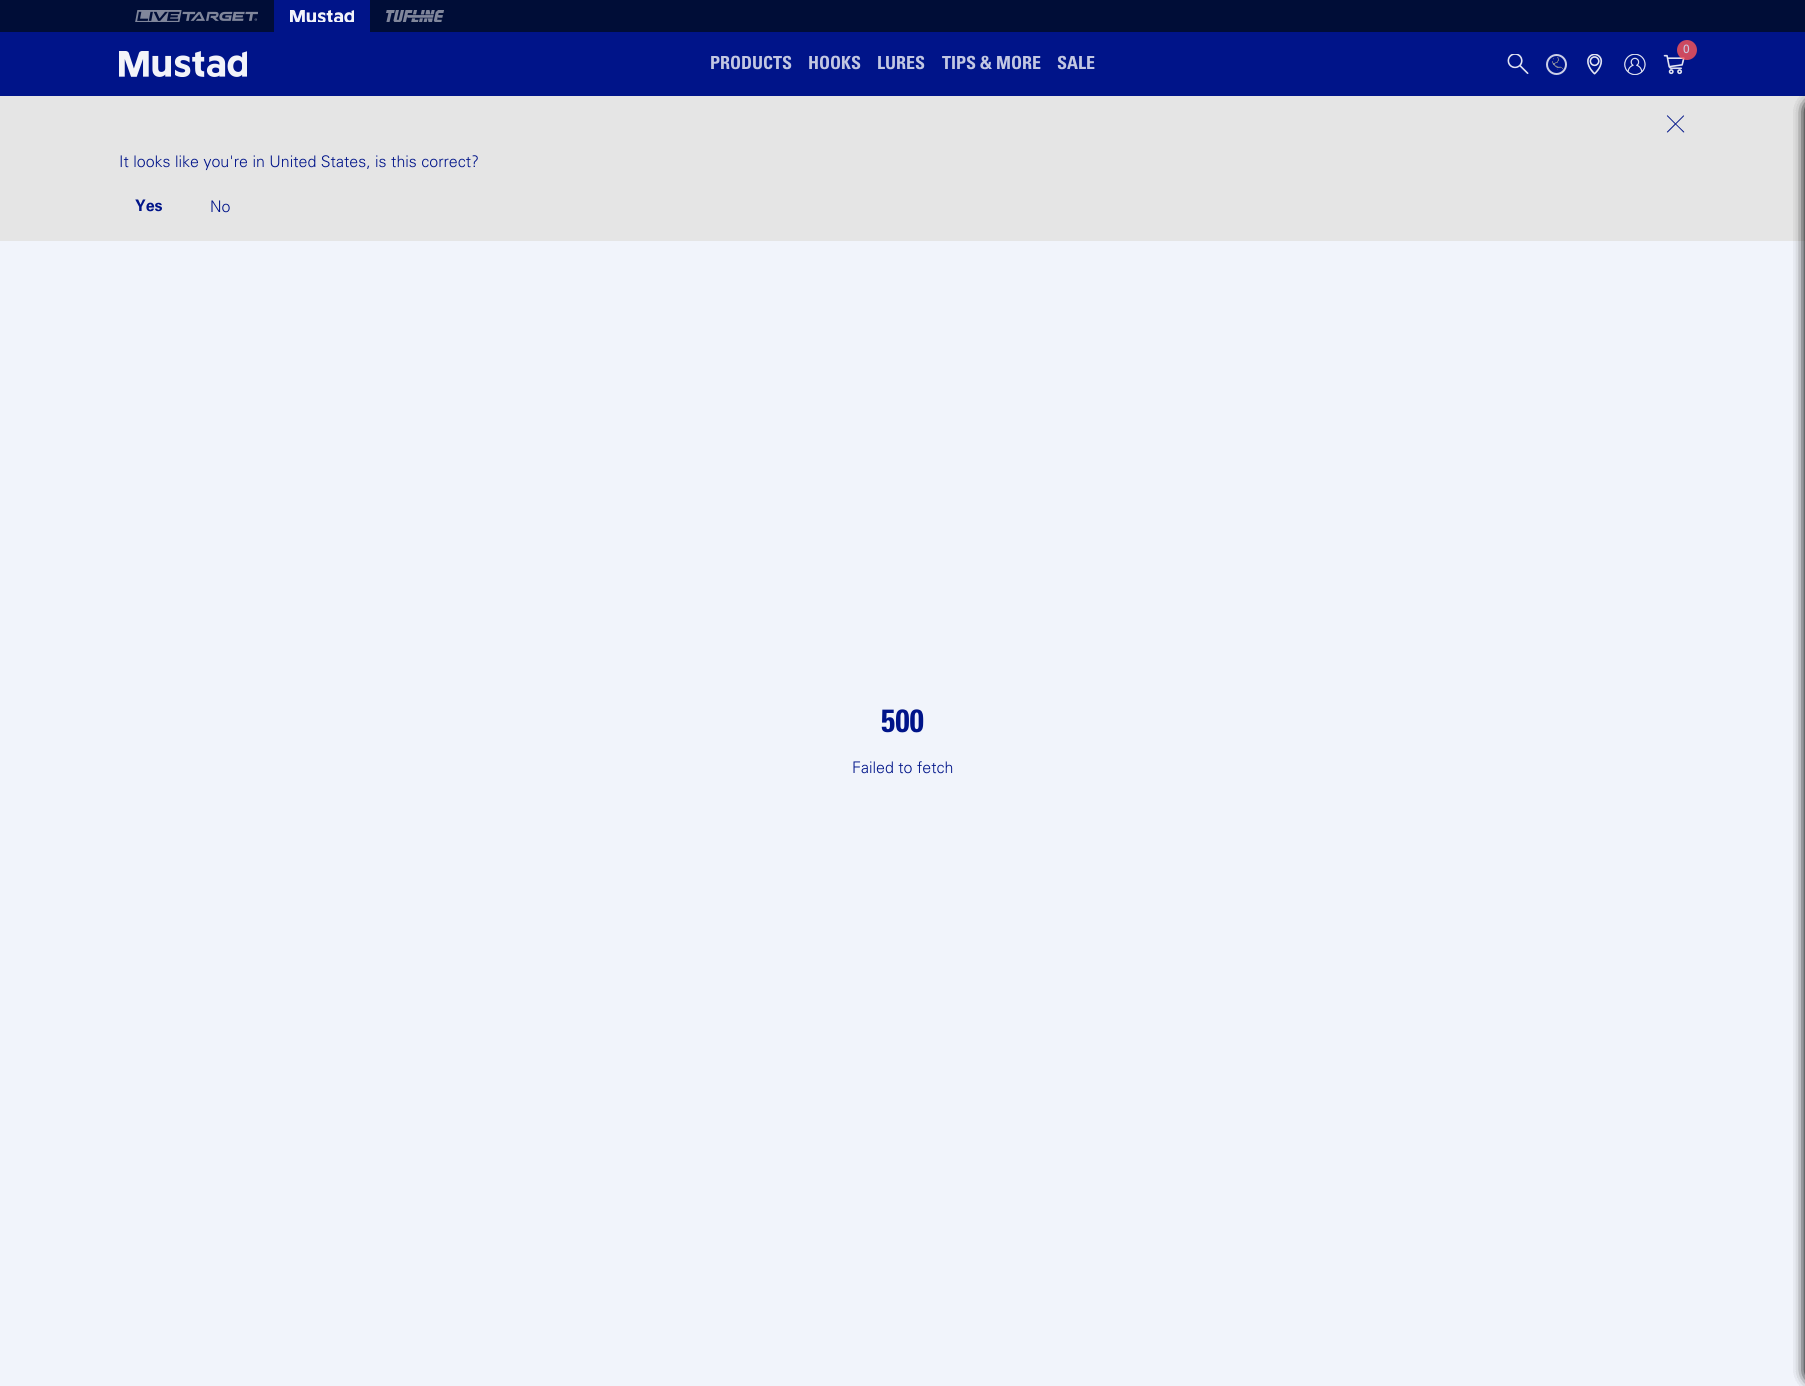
import math
import cairocffi as cairo

surface = cairo.ImageSurface(cairo.FORMAT_RGB24, 1805, 1386)
ctx = cairo.Context(surface)
options = cairo.FontOptions()
options.set_hint_metrics(cairo.HINT_METRICS_OFF)
options.set_hint_style(cairo.HINT_STYLE_NONE)
ctx.set_font_options(options)
ctx.set_miter_limit(4)


def rgb(r, g, b):
    ctx.set_source_rgb(r / 255, g / 255, b / 255)


def face(family, size, italic, bold):
    ctx.select_font_face(family, cairo.FONT_SLANT_ITALIC if italic else cairo.FONT_SLANT_NORMAL, cairo.FONT_WEIGHT_BOLD if bold else cairo.FONT_WEIGHT_NORMAL)
    ctx.set_font_size(size)


def label(x, y, s):
    ctx.move_to(x, y)
    ctx.show_text(s)


def rect(x, y, w, h):
    ctx.rectangle(x, y, w, h)
    ctx.fill()


def rrect(x, y, w, h, r):
    ctx.new_sub_path()
    for i, (u, v) in enumerate([(x + w - r, y + h - r), (x + r, y + h - r), (x + r, y + r), (x + w - r, y + r)]):
        ctx.arc(u, v, r, i * math.pi / 2, (i + 1) * math.pi / 2)
    ctx.close_path()


def soft_shadow(x, y, w, h, r, blur, alpha):
    ctx.push_group_with_content(cairo.CONTENT_ALPHA)
    ctx.set_operator(cairo.OPERATOR_SOURCE)
    for i in range(15, -16, -2):
        e = blur * i / 6
        if min(w, h) + 2 * e > 0:
            ctx.set_source_rgba(0, 0, 0, alpha * math.erfc((i - 1) / 8.5) / 2)
            rrect(x - e, y - e, w + 2 * e, h + 2 * e, max(0, min(r + e + blur * .6, min(w, h) / 2 + e)))
            ctx.fill()
    ctx.mask(ctx.pop_group())


def image(path, x, y, w, h):
    ctx.save()
    ctx.set_source_surface(cairo.ImageSurface.create_from_png(path), x, y)
    ctx.rectangle(x, y, w, h)
    ctx.fill()
    ctx.restore()


rgb(241, 244, 251)
ctx.paint()
rgb(0, 13, 55)
rect(0, 0, 1805, 32)
image('image0.png', 135, 10, 123, 12)
rgb(0, 20, 137)
rect(274, 0, 96, 32)
image('image1.png', 290, 10, 64, 12)
image('image2.png', 386, 10, 58, 12)
rect(0, 32, 1805, 64)
image('image3.png', 1663, 54, 22, 21)
ctx.set_source_rgba(1, 0.337, 0.337, 0.8)
ctx.arc(1687, 50, 10, 0, 2 * math.pi)
ctx.fill()
face('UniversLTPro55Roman', 12, 0, 0)
rgb(204, 201, 224)
label(1683, 53, '0')
image('image4.png', 1507, 54, 22, 20)
ctx.arc(1556.5, 64.5, 9.5, 0, 2 * math.pi)
rgb(204, 208, 231)
ctx.stroke()
image('image5.png', 1552, 57, 11, 13)
image('image6.png', 1587, 54, 16, 21)
image('image7.png', 1624, 54, 22, 21)
image('image8.png', 119, 51, 128, 26)
face('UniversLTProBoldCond', 18, 0, 0)
rgb(194, 199, 226)
label(710, 69, 'PRODUCTS')
label(808, 69, 'HOOKS')
label(877, 69, 'LURES')
label(942, 69, 'TIPS & MORE')
label(1057, 69, 'SALE')
rgb(229, 229, 229)
rect(0, 96, 1805, 145)
rgb(0, 0, 0)
soft_shadow(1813, 108, 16, 1266, 0, 8, 1)
soft_shadow(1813, 108, 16, 1266, 0, 8, 1)
soft_shadow(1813, 108, 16, 1266, 0, 8, 1)
soft_shadow(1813, 108, 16, 1266, 0, 8, 1)
image('image9.png', 1666, 115, 19, 18)
face('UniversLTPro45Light', 16, 0, 0)
rgb(0, 20, 137)
label(119, 167, 'It looks like you\'re in United States, is this correct?')
face('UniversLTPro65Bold', 16, 0, 0)
label(135, 211, 'Yes')
face('UniversLTPro45Light', 16, 0, 0)
label(210, 212, 'No')
rgb(0, 0, 0)
soft_shadow(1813, 108, 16, 1266, 0, 8, 1)
face('UniversLTProBoldCond', 32, 0, 0)
rgb(0, 20, 137)
label(881, 732, '500')
face('UniversLTPro45Light', 16, 0, 0)
label(852, 773, 'Failed to fetch')
surface.write_to_png('render.png')
